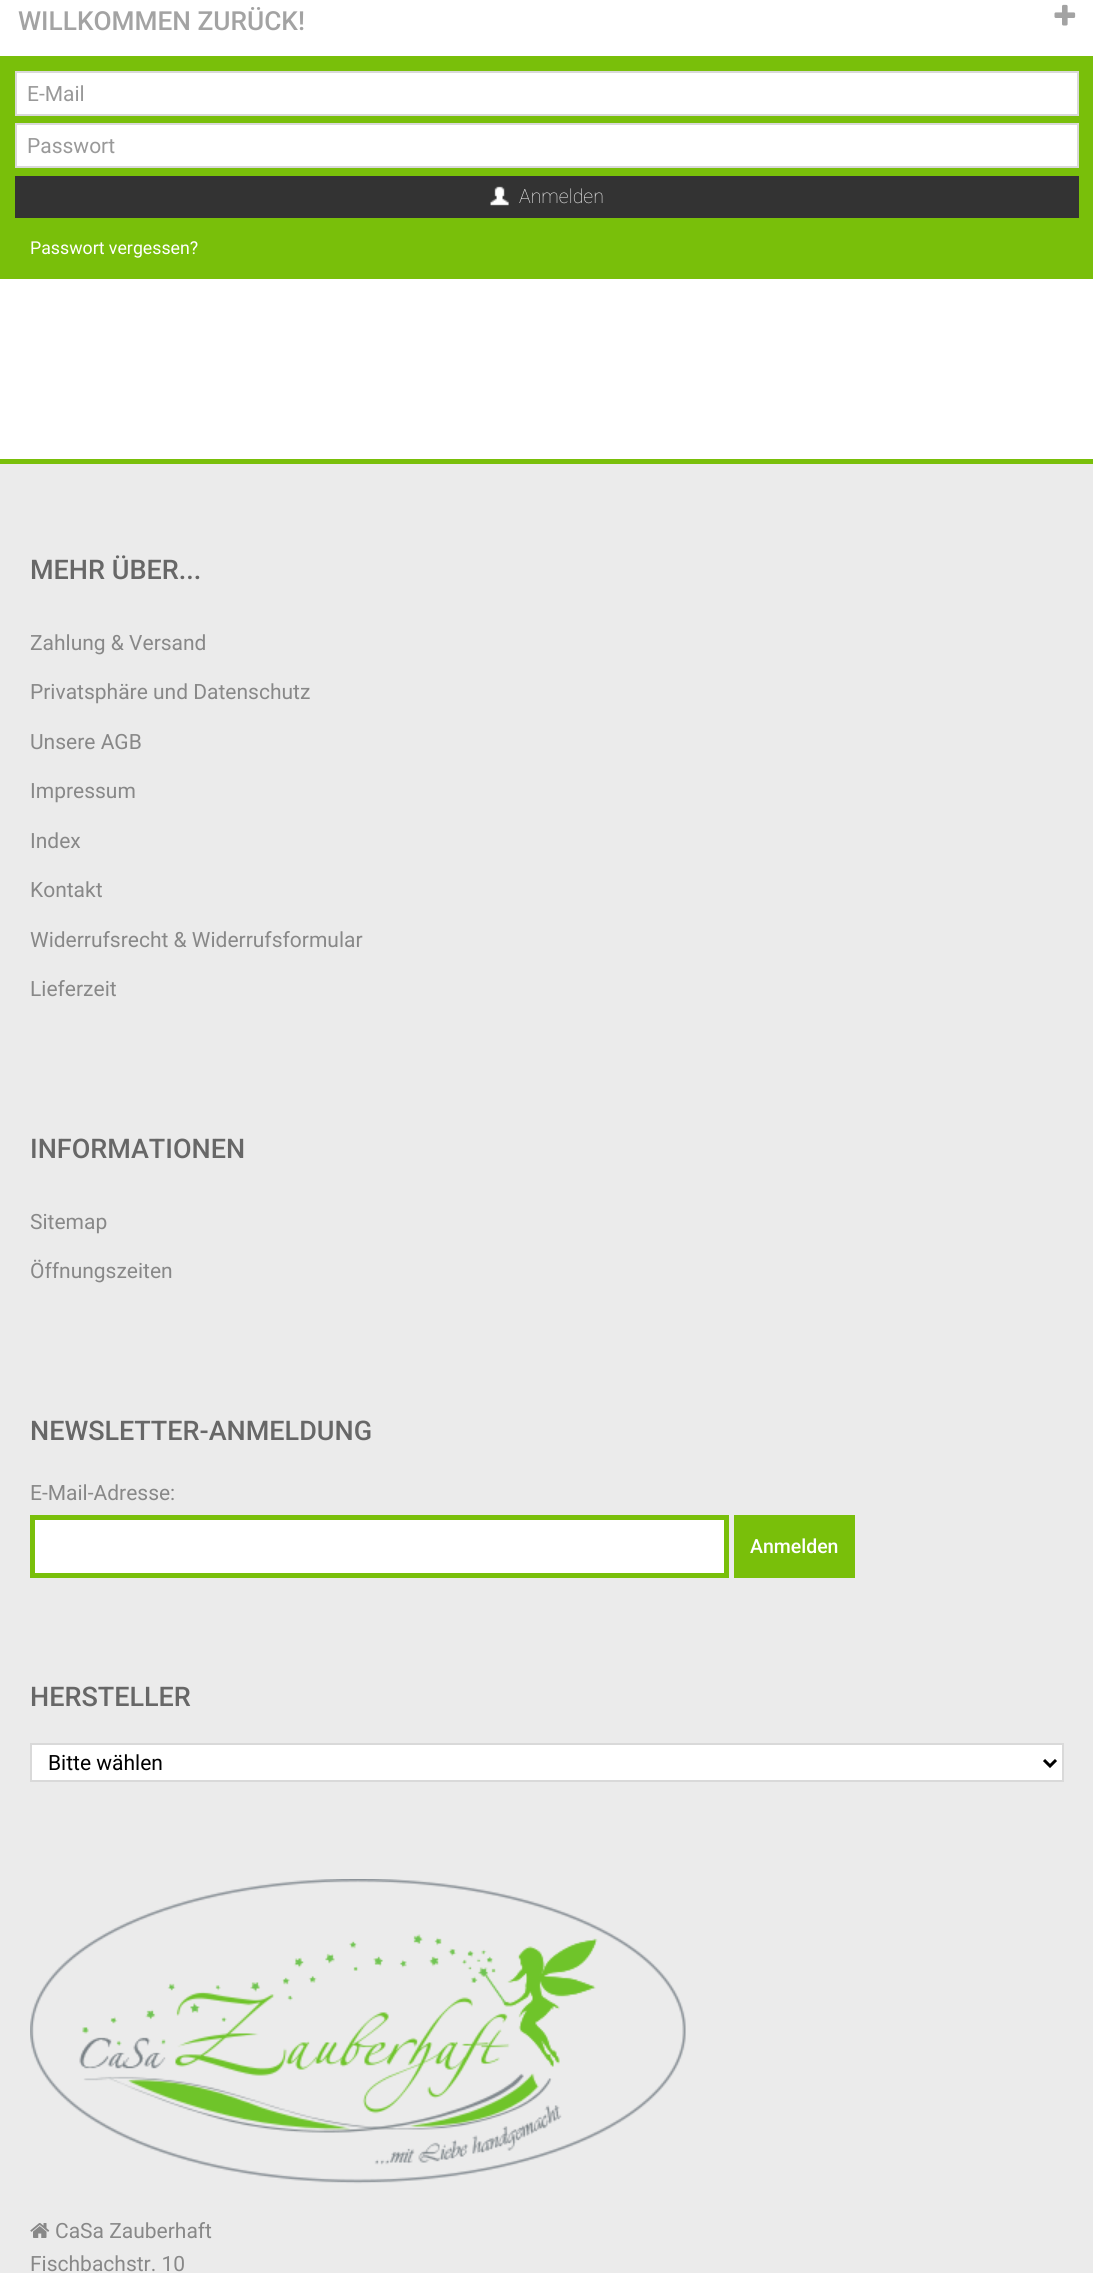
import math
import cairocffi as cairo

surface = cairo.ImageSurface(cairo.FORMAT_RGB24, 1093, 2273)
ctx = cairo.Context(surface)
options = cairo.FontOptions()
options.set_hint_metrics(cairo.HINT_METRICS_OFF)
options.set_hint_style(cairo.HINT_STYLE_NONE)
ctx.set_font_options(options)
ctx.set_miter_limit(4)


def rgb(r, g, b):
    ctx.set_source_rgb(r / 255, g / 255, b / 255)


def face(family, size, italic, bold):
    ctx.select_font_face(family, cairo.FONT_SLANT_ITALIC if italic else cairo.FONT_SLANT_NORMAL, cairo.FONT_WEIGHT_BOLD if bold else cairo.FONT_WEIGHT_NORMAL)
    ctx.set_font_size(size)


def label(x, y, s):
    ctx.move_to(x, y)
    ctx.show_text(s)


def rect(x, y, w, h):
    ctx.rectangle(x, y, w, h)
    ctx.fill()


def image(path, x, y, w, h):
    ctx.save()
    ctx.set_source_surface(cairo.ImageSurface.create_from_png(path), x, y)
    ctx.rectangle(x, y, w, h)
    ctx.fill()
    ctx.restore()


rgb(235, 235, 235)
ctx.paint()
rgb(255, 255, 255)
rect(0, 0, 1093, 459)
face('Roboto Medium', 26.25, 0, 0)
rgb(163, 163, 163)
label(18, 30, 'WILLKOMMEN ZURÜCK!')
image('image0.png', 1054, 4, 22, 22)
rgb(121, 191, 10)
rect(0, 56, 1093, 223)
rgb(255, 255, 255)
ctx.rectangle(16, 72, 1062, 43)
ctx.fill_preserve()
rgb(217, 217, 217)
ctx.stroke()
face('Roboto', 21, 0, 0)
rgb(153, 153, 153)
label(27, 101, 'E-Mail')
rgb(255, 255, 255)
ctx.rectangle(16, 124, 1062, 43)
ctx.fill_preserve()
rgb(217, 217, 217)
ctx.stroke()
rgb(153, 153, 153)
label(27, 153, 'Passwort')
rgb(51, 51, 51)
rect(15, 176, 1064, 42)
image('image1.png', 490, 186, 19, 20)
face('Roboto Thin', 19.5, 0, 0)
rgb(255, 255, 255)
label(519, 203, 'Anmelden')
face('Roboto', 17.75, 0, 0)
label(30, 254, 'Passwort vergessen?')
rgb(121, 191, 10)
rect(0, 459, 1093, 5)
face('Roboto Medium', 27, 0, 0)
rgb(103, 103, 103)
label(30, 579, 'MEHR ÜBER...')
face('Roboto', 21, 0, 0)
rgb(136, 136, 136)
label(30, 650, 'Zahlung & Versand')
label(30, 699, 'Privatsphäre und Datenschutz')
label(30, 749, 'Unsere AGB')
label(30, 798, 'Impressum')
label(30, 848, 'Index')
label(30, 897, 'Kontakt')
label(30, 947, 'Widerrufsrecht & Widerrufsformular')
label(30, 996, 'Lieferzeit')
face('Roboto Medium', 27, 0, 0)
rgb(103, 103, 103)
label(30, 1158, 'INFORMATIONEN')
face('Roboto', 21, 0, 0)
rgb(136, 136, 136)
label(30, 1229, 'Sitemap')
label(30, 1278, 'Öffnungszeiten')
face('Roboto Medium', 27, 0, 0)
rgb(103, 103, 103)
label(30, 1440, 'NEWSLETTER-ANMELDUNG')
face('Roboto', 21, 0, 0)
rgb(136, 136, 136)
label(30, 1500, 'E-Mail-Adresse:')
rgb(255, 255, 255)
ctx.rectangle(32.5, 1517.5, 694, 58)
ctx.fill_preserve()
rgb(121, 191, 10)
ctx.set_line_width(5)
ctx.stroke()
rect(734, 1515, 121, 63)
face('Roboto Medium', 19.5, 0, 0)
rgb(255, 255, 255)
label(750, 1553, 'Anmelden')
face('Roboto Medium', 27, 0, 0)
rgb(103, 103, 103)
label(30, 1706, 'HERSTELLER')
rgb(255, 255, 255)
ctx.rectangle(31, 1744, 1032, 37)
ctx.fill_preserve()
rgb(217, 217, 217)
ctx.set_line_width(2)
ctx.stroke()
ctx.new_path()
ctx.move_to(1044, 1760)
ctx.line_to(1050, 1766)
ctx.line_to(1056, 1760)
rgb(0, 0, 0)
ctx.set_line_width(3)
ctx.stroke()
face('Roboto', 21, 0, 0)
label(48, 1770, 'Bitte wählen')
image('image2.png', 30, 1879, 656, 305)
image('image3.png', 30, 2223, 20, 15)
rgb(136, 136, 136)
label(55, 2238, 'CaSa Zauberhaft')
label(30, 2271, 'Fischbachstr. 10')
surface.write_to_png('render.png')
